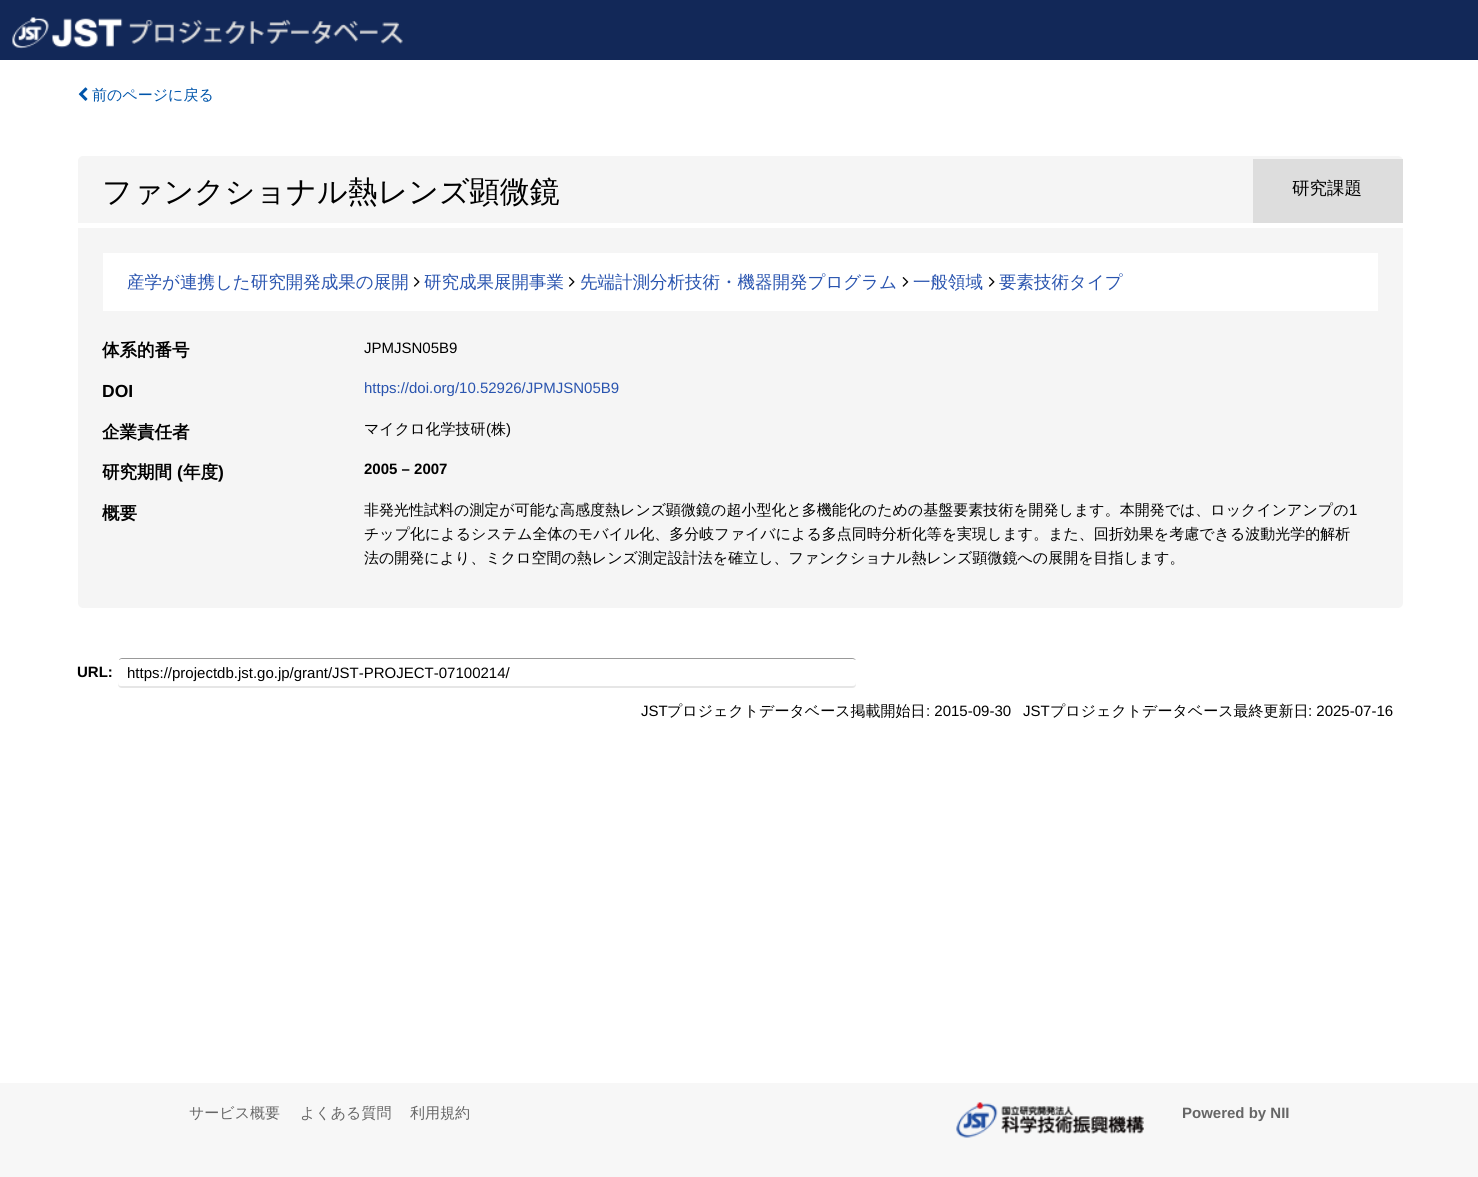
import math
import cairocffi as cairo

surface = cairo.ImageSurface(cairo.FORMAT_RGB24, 1478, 1177)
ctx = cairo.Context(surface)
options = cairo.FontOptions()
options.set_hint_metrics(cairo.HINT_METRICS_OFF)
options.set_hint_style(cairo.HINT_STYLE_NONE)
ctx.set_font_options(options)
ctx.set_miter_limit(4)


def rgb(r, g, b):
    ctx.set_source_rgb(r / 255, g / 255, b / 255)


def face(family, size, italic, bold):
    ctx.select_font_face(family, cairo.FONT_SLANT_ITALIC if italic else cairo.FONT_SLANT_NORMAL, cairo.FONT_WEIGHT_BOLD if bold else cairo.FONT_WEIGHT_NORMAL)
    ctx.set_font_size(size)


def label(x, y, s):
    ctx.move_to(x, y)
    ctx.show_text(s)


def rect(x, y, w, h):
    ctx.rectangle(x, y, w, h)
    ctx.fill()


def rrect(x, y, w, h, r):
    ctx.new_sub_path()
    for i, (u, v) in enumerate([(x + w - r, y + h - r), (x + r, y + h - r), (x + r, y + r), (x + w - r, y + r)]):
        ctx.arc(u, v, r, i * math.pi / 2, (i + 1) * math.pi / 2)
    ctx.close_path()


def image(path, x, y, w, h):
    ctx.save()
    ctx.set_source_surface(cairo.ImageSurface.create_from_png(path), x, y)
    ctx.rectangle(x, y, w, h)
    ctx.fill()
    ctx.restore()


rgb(255, 255, 255)
ctx.paint()
rgb(18, 40, 88)
rect(0, 0, 1478, 60)
image('image0.png', 12, 17, 391, 32)
image('image1.png', 78, 87, 10, 14)
face('WenQuanYi Zen Hei Medium', 15, 0, 0)
rgb(0, 85, 170)
label(92, 100, '前のページに戻る')
rgb(245, 245, 245)
rrect(78, 156, 1325, 452, 5)
ctx.fill()
rgb(221, 221, 221)
rect(1253, 159, 150, 64)
face('WenQuanYi Zen Hei Medium', 30, 0, 0)
rgb(0, 0, 0)
label(102, 202, 'ファンクショナル熱レンズ顕微鏡')
face('WenQuanYi Zen Hei Medium', 17.5, 0, 0)
label(1292, 194, '研究課題')
rgb(255, 255, 255)
rect(78, 223, 1325, 5)
rect(103, 253, 1275, 58)
rgb(41, 84, 175)
label(127, 288, '産学が連携した研究開発成果の展開')
image('image2.png', 413, 277, 7, 10)
label(424, 288, '研究成果展開事業')
image('image2.png', 568, 277, 7, 10)
label(580, 288, '先端計測分析技術・機器開発プログラム')
image('image3.png', 902, 277, 7, 10)
label(913, 288, '一般領域')
image('image2.png', 988, 277, 7, 10)
label(999, 288, '要素技術タイプ')
face('WenQuanYi Zen Hei', 17.5, 0, 1)
rgb(0, 0, 0)
label(102, 356, '体系的番号')
face('Liberation Sans', 15, 0, 0)
label(364, 353, 'JPMJSN05B9')
face('Liberation Sans', 17.5, 0, 1)
label(102, 397, 'DOI')
face('Liberation Sans', 15, 0, 0)
rgb(41, 84, 175)
label(364, 393, 'https://doi.org/10.52926/JPMJSN05B9')
face('WenQuanYi Zen Hei', 17.5, 0, 1)
rgb(0, 0, 0)
label(102, 438, '企業責任者')
face('WenQuanYi Zen Hei Medium', 15, 0, 0)
label(364, 434, 'マイクロ化学技研')
face('Liberation Sans', 15, 0, 0)
label(486, 434, '(')
face('WenQuanYi Zen Hei Medium', 15, 0, 0)
label(491, 434, '株')
face('Liberation Sans', 15, 0, 0)
label(506, 434, ')')
face('WenQuanYi Zen Hei', 17.5, 0, 1)
label(102, 478, '研究期間')
face('Liberation Sans', 17.5, 0, 1)
label(177, 478, '(')
face('WenQuanYi Zen Hei', 17.5, 0, 1)
label(183, 478, '年度')
face('Liberation Sans', 17.5, 0, 1)
label(218, 478, ')')
face('Liberation Sans', 15, 0, 1)
label(364, 474, '2005 – 2007')
face('WenQuanYi Zen Hei', 17.5, 0, 1)
label(102, 519, '概要')
face('WenQuanYi Zen Hei Medium', 15, 0, 0)
label(364, 515, '非発光性試料の測定が可能な高感度熱レンズ顕微鏡の超小型化と多機能化のための基盤要素技術を開発します。本開発では、ロックインアンプの')
face('Liberation Sans', 15, 0, 0)
label(1349, 515, '1')
face('WenQuanYi Zen Hei Medium', 15, 0, 0)
label(364, 539, 'チップ化によるシステム全体のモバイル化、多分岐ファイバによる多点同時分析化等を実現します。また、回折効果を考慮できる波動光学的解析')
label(364, 563, '法の開発により、ミクロ空間の熱レンズ測定設計法を確立し、ファンクショナル熱レンズ顕微鏡への展開を目指します。')
face('Liberation Sans', 15, 0, 1)
label(77, 677, 'URL:')
rgb(230, 230, 230)
ctx.new_path()
ctx.move_to(118, 682)
ctx.curve_to(118, 685, 118, 688, 122, 688)
ctx.line_to(852, 688)
ctx.curve_to(856, 688, 856, 685, 856, 682)
ctx.curve_to(856, 685, 855, 686, 852, 686)
ctx.line_to(121, 686)
ctx.curve_to(119, 686, 118, 685, 118, 682)
ctx.close_path()
ctx.fill()
rgb(153, 153, 153)
ctx.new_path()
ctx.move_to(121, 659)
ctx.line_to(853, 659)
ctx.line_to(856, 660)
ctx.curve_to(855, 659, 854, 658, 852, 658)
ctx.line_to(122, 658)
ctx.curve_to(121, 658, 119, 659, 119, 660)
ctx.close_path()
ctx.fill()
ctx.save()
ctx.rectangle(128, 658, 718, 30)
ctx.clip()
face('Liberation Sans', 15, 0, 0)
rgb(0, 0, 0)
label(127, 678, 'https://projectdb.jst.go.jp/grant/JST-PROJECT-07100214/')
ctx.restore()
face('Liberation Sans', 15, 0, 0)
rgb(0, 0, 0)
label(641, 716, 'JST')
face('WenQuanYi Zen Hei Medium', 15, 0, 0)
label(667, 716, 'プロジェクトデータベース掲載開始日')
face('Liberation Sans', 15, 0, 0)
label(926, 716, ': 2015-09-30')
label(1023, 716, 'JST')
face('WenQuanYi Zen Hei Medium', 15, 0, 0)
label(1050, 716, 'プロジェクトデータベース最終更新日')
face('Liberation Sans', 15, 0, 0)
label(1308, 716, ': 2025-07-16')
rgb(247, 247, 247)
rect(0, 1083, 1478, 94)
face('WenQuanYi Zen Hei Medium', 15, 0, 0)
rgb(102, 102, 102)
label(189, 1118, 'サービス概要')
label(300, 1118, 'よくある質問')
label(410, 1118, '利用規約')
image('image4.png', 956, 1102, 188, 36)
face('Liberation Sans', 15, 0, 1)
label(1182, 1118, 'Powered by NII')
surface.write_to_png('render.png')
